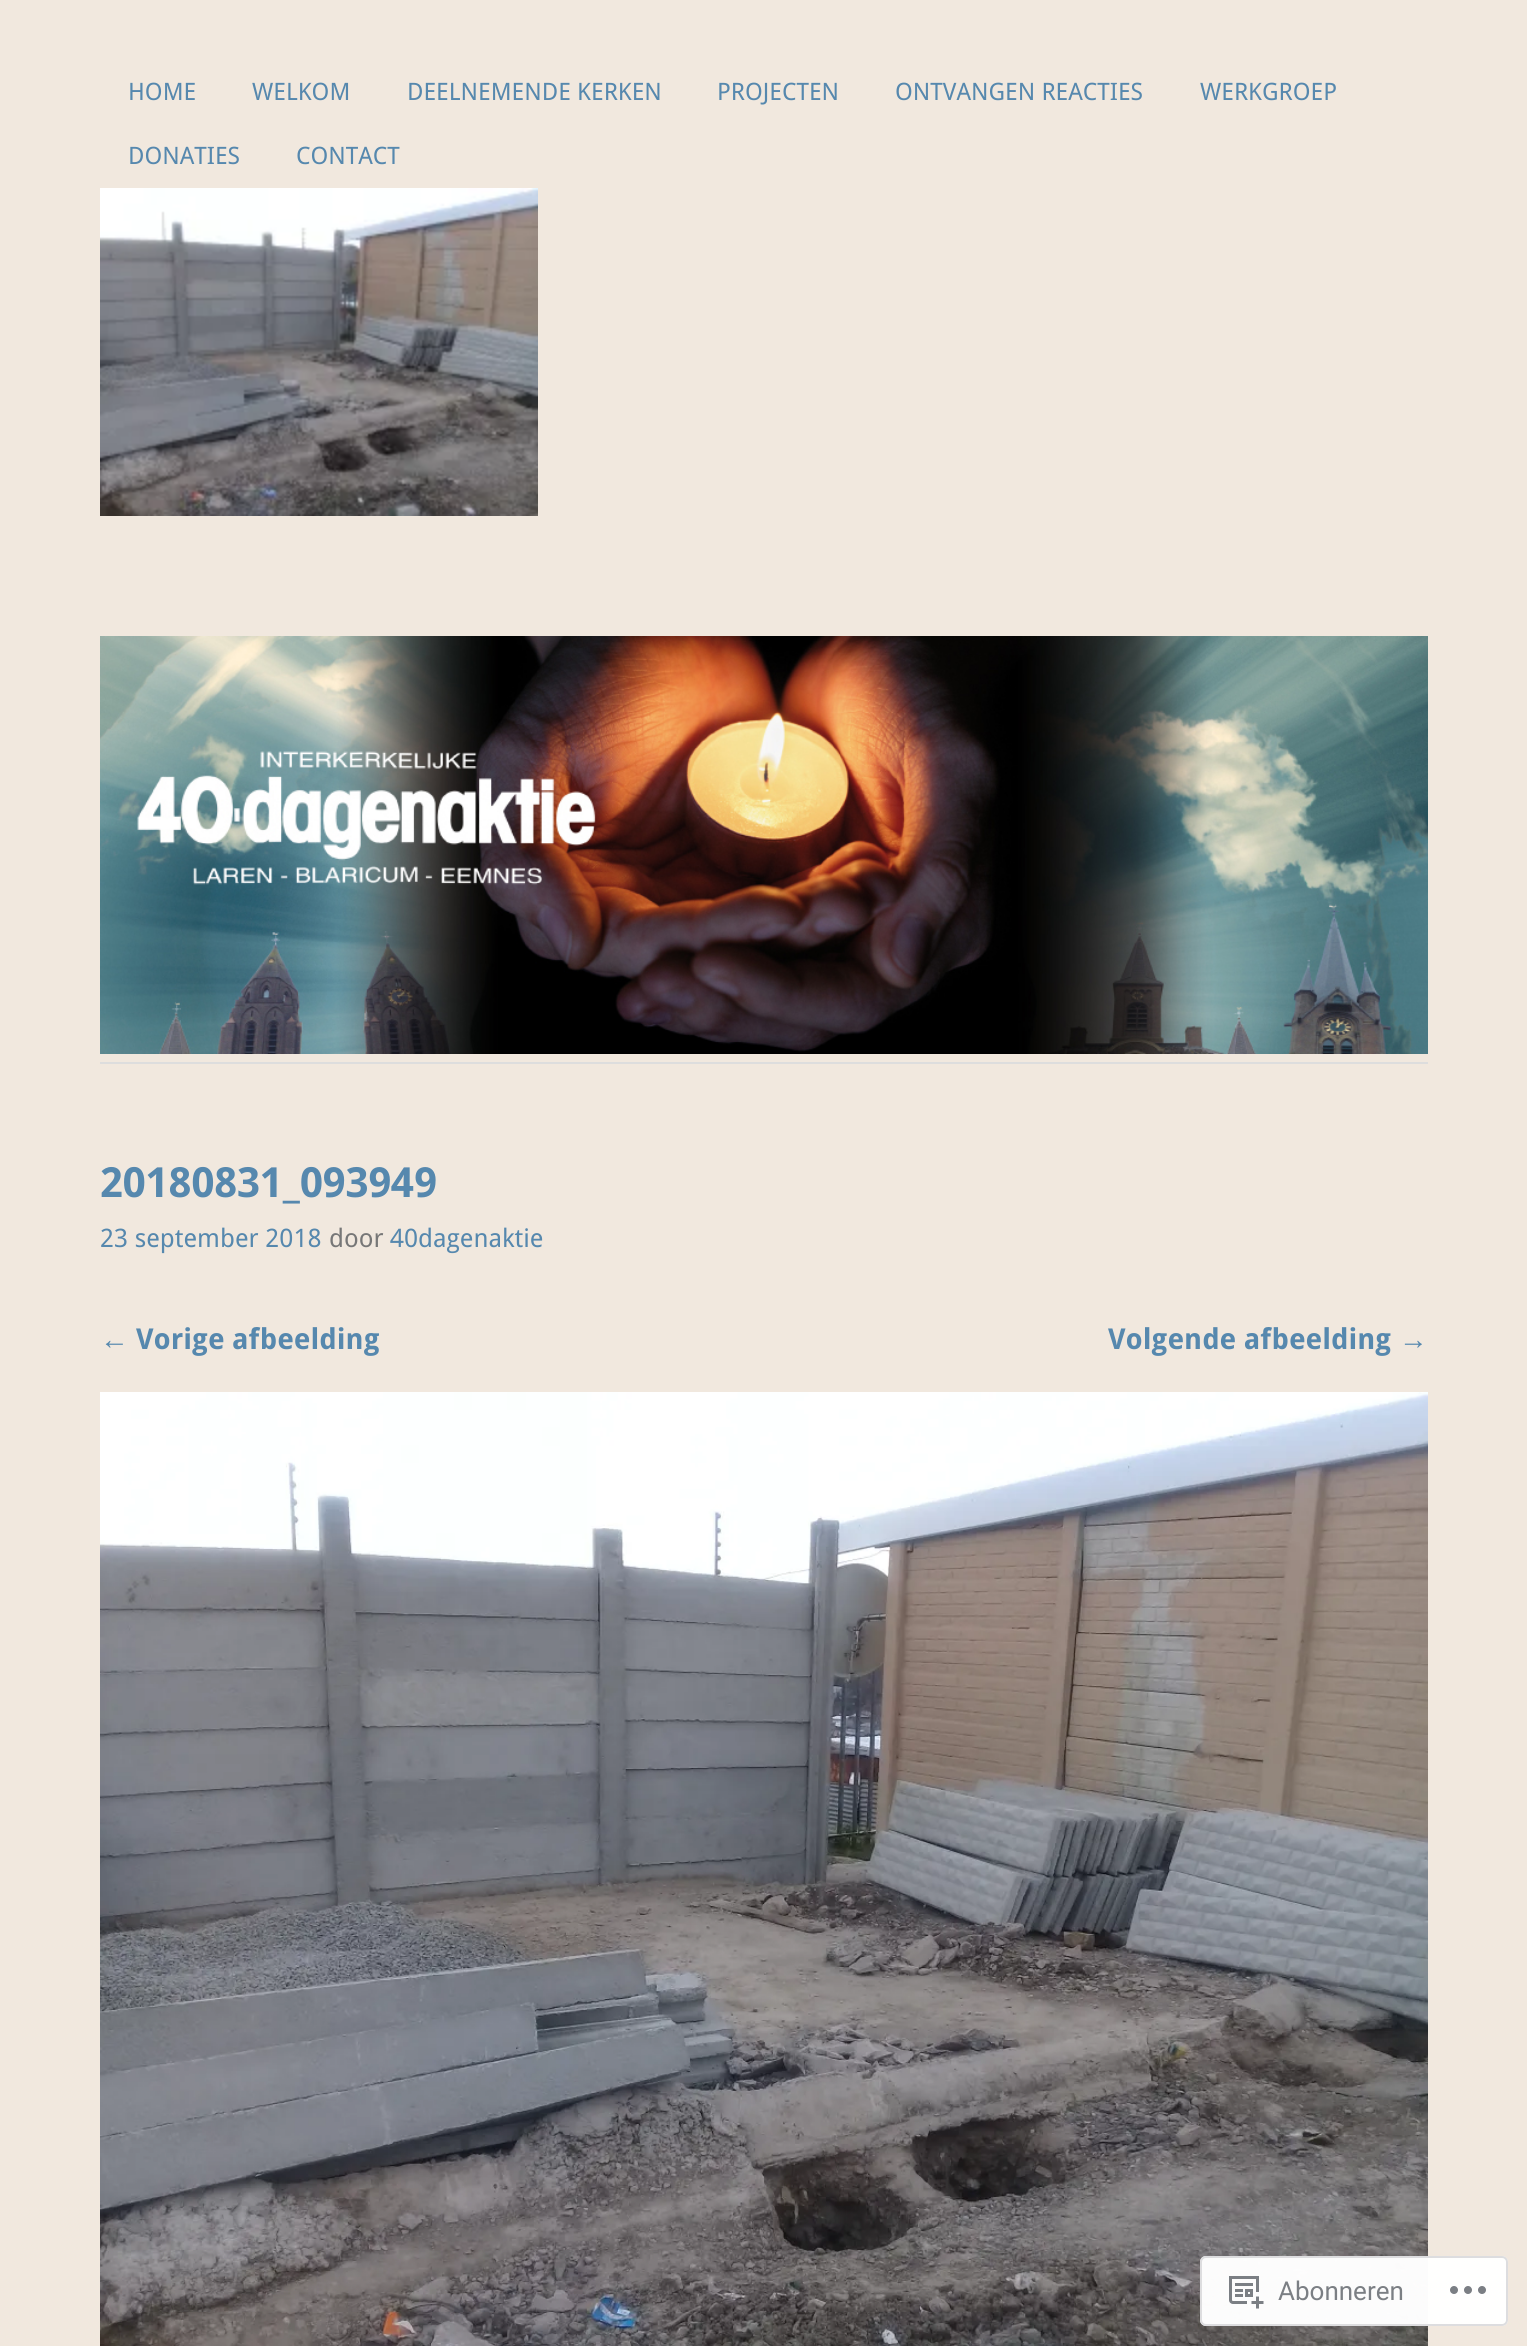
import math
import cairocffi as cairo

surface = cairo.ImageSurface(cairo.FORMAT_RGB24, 1527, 2346)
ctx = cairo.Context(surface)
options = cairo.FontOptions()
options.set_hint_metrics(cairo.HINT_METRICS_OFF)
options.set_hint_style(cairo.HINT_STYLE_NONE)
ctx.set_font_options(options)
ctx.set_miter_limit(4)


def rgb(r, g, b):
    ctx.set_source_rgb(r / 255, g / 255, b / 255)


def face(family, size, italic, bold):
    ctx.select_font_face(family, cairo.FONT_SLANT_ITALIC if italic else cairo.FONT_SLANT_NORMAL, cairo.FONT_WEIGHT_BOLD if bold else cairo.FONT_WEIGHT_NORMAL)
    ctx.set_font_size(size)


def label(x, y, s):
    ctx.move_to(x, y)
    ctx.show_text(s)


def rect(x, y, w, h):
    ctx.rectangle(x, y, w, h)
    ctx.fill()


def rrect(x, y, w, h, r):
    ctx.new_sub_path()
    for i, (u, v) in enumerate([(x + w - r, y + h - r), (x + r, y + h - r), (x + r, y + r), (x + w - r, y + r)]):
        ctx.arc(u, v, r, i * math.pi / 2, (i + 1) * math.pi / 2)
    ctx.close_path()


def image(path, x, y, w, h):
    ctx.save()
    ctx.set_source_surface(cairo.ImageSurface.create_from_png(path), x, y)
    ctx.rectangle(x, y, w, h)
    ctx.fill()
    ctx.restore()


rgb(241, 232, 222)
ctx.paint()
face('Droid Sans', 24, 0, 0)
rgb(86, 136, 174)
label(128, 100, 'HOME')
label(252, 100, 'WELKOM')
label(407, 100, 'DEELNEMENDE KERKEN')
label(717, 100, 'PROJECTEN')
label(895, 100, 'ONTVANGEN REACTIES')
label(1200, 100, 'WERKGROEP')
label(128, 164, 'DONATIES')
label(296, 164, 'CONTACT')
image('image0.png', 100, 188, 438, 328)
image('image1.png', 100, 636, 1328, 418)
rgb(221, 221, 221)
rect(100, 1062, 1328, 2)
face('Droid Sans', 41.5, 0, 1)
rgb(86, 136, 174)
label(100, 1197, '20180831_093949')
face('Droid Sans', 25.5, 0, 0)
label(100, 1247, '23 september 2018')
rgb(119, 119, 119)
label(329, 1247, 'door')
rgb(86, 136, 174)
label(390, 1247, '40dagenaktie')
face('Liberation Sans', 28.75, 0, 1)
label(100, 1349, '←')
face('Droid Sans', 28.75, 0, 1)
label(136, 1349, 'Vorige afbeelding')
label(1108, 1349, 'Volgende afbeelding')
face('Liberation Sans', 28.75, 0, 1)
label(1399, 1349, '→')
image('image2.png', 100, 1392, 1328, 954)
ctx.set_source_rgba(1, 1, 1, 0.98)
rrect(1200, 2256, 308, 70, 6)
ctx.fill()
rrect(1201, 2257, 306, 68, 5)
ctx.set_source_rgba(0.863, 0.863, 0.871, 0.98)
ctx.stroke()
image('image3.png', 1229, 2276, 35, 33)
face('Roboto', 26, 0, 0)
rgb(123, 127, 132)
label(1278, 2300, 'Abonneren')
image('image4.png', 1450, 2286, 36, 8)
surface.write_to_png('render.png')
